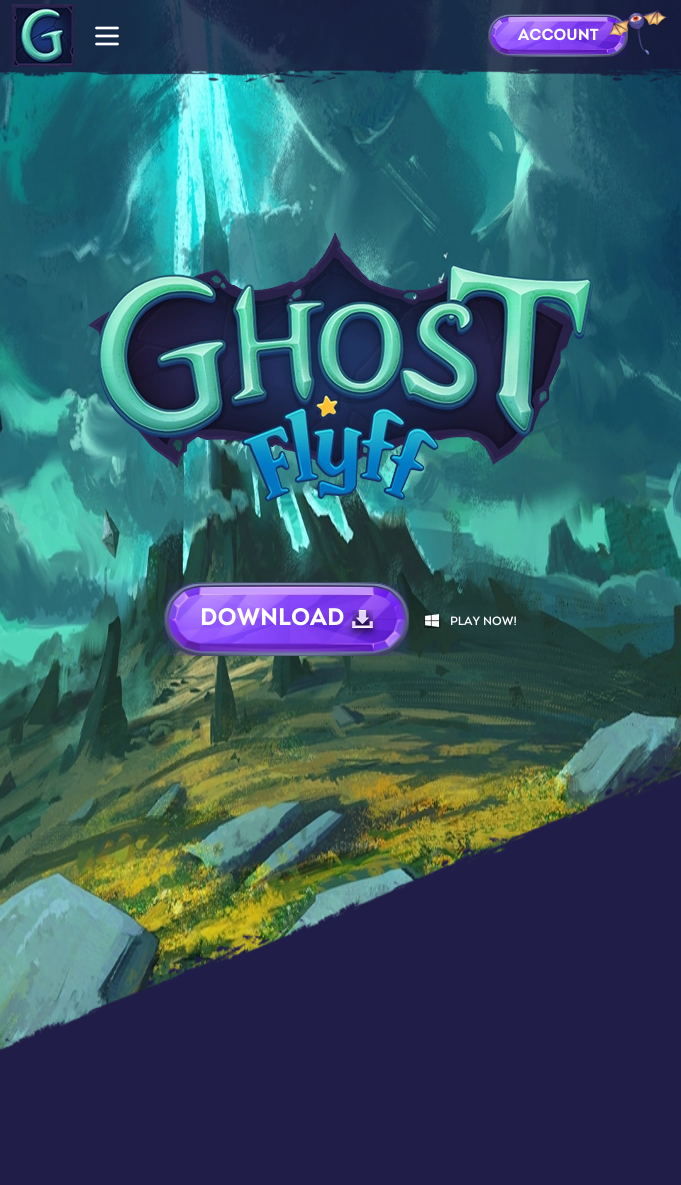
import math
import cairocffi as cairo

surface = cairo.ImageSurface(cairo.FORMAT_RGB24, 681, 1185)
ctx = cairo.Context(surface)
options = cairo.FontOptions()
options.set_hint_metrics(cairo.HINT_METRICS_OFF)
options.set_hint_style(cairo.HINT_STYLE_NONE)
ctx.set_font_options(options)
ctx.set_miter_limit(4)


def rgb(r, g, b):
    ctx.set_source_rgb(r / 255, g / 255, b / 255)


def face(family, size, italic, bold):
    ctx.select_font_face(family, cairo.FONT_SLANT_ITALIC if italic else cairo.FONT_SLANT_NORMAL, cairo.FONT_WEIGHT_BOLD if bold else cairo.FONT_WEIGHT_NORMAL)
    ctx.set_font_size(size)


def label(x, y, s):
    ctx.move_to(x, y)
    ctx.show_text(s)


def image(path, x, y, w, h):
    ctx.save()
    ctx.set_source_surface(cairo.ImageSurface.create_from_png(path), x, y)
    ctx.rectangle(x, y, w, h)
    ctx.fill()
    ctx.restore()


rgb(32, 30, 72)
ctx.paint()
image('image4.png', 0, 0, 681, 1051)
image('image0.png', 0, 0, 681, 85)
image('image1.png', 12, 4, 63, 63)
ctx.new_path()
ctx.move_to(96.5, 28)
ctx.line_to(117.5, 28)
ctx.move_to(96.5, 36)
ctx.line_to(117.5, 36)
ctx.move_to(96.5, 44)
ctx.line_to(117.5, 44)
rgb(255, 255, 255)
ctx.set_line_width(2.7)
ctx.set_line_cap(cairo.LINE_CAP_ROUND)
ctx.set_line_join(cairo.LINE_JOIN_ROUND)
ctx.stroke()
image('image2.png', 488, 14, 140, 43)
face('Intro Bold', 16, 0, 1)
label(518, 40, 'ACCOUNT')
image('image3.png', 609, 10, 60, 45)
image('image5.png', 88, 232, 505, 270)
image('image6.png', 164, 582, 245, 74)
face('Intro Bold', 24, 0, 1)
label(200, 625, 'DOWNLOAD')
image('image7.png', 346, 608, 33, 30)
image('image8.png', 424, 614, 17, 14)
face('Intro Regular', 12, 0, 0)
label(450, 625, 'PLAY NOW!')
surface.write_to_png('render.png')
